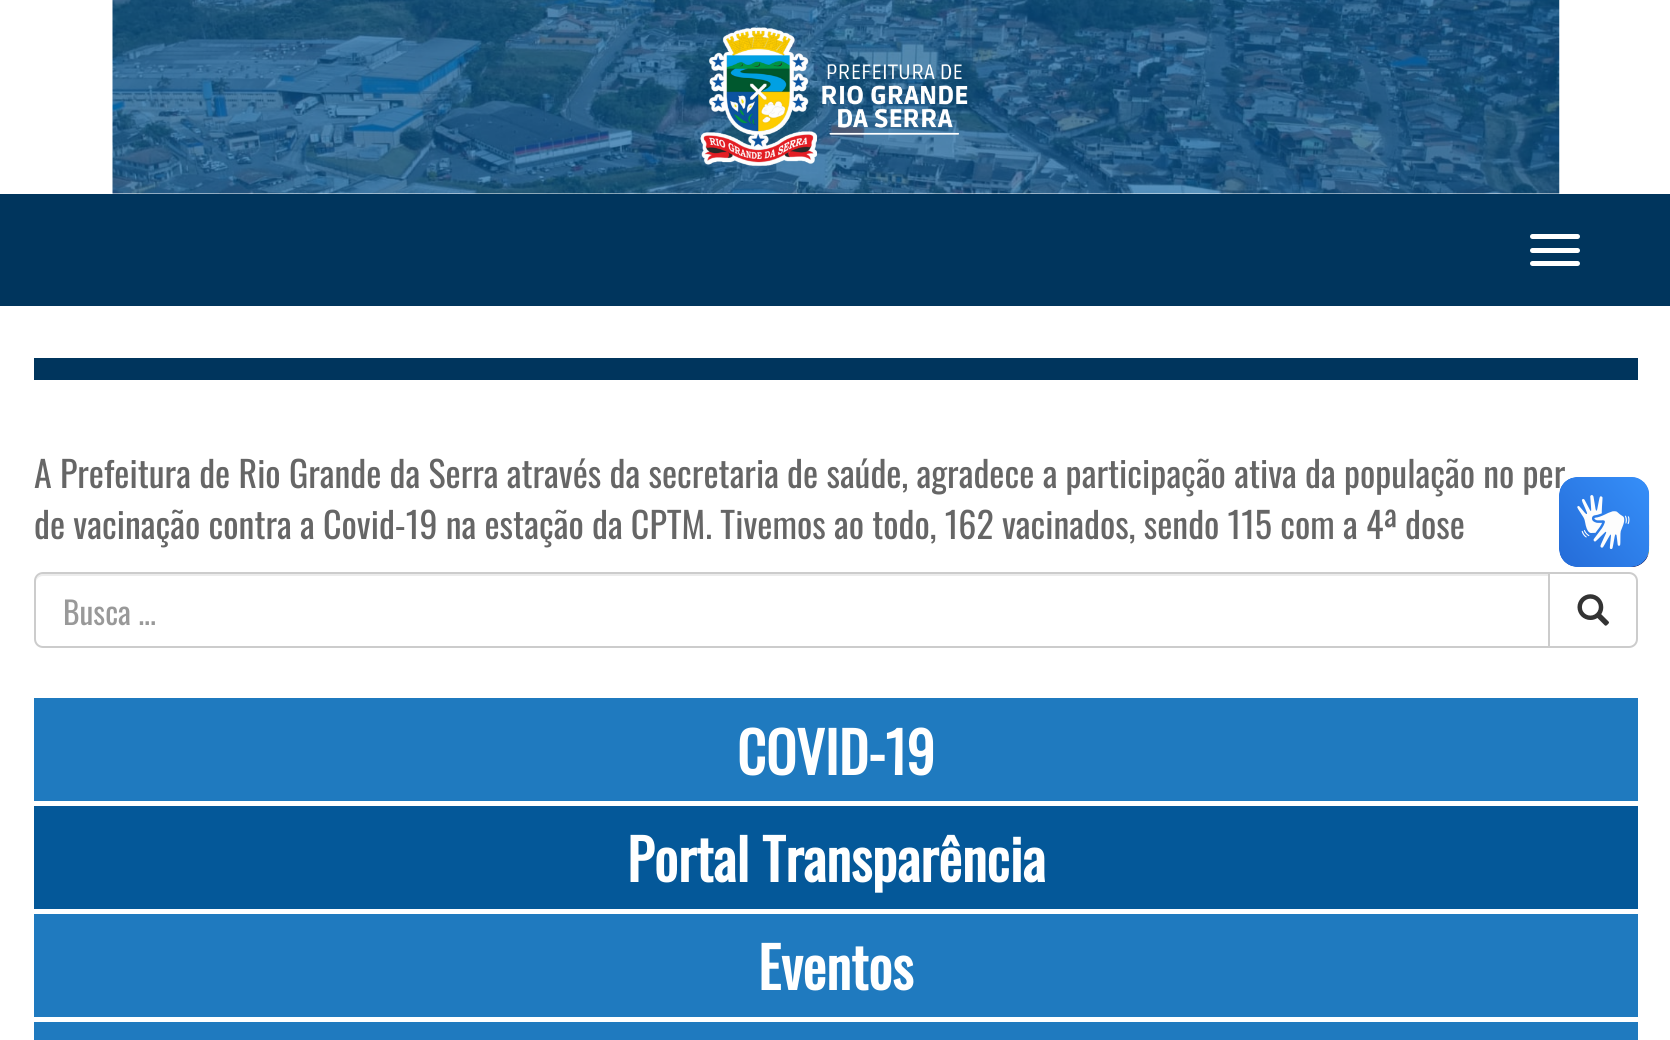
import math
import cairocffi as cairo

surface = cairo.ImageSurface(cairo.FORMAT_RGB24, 1670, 1040)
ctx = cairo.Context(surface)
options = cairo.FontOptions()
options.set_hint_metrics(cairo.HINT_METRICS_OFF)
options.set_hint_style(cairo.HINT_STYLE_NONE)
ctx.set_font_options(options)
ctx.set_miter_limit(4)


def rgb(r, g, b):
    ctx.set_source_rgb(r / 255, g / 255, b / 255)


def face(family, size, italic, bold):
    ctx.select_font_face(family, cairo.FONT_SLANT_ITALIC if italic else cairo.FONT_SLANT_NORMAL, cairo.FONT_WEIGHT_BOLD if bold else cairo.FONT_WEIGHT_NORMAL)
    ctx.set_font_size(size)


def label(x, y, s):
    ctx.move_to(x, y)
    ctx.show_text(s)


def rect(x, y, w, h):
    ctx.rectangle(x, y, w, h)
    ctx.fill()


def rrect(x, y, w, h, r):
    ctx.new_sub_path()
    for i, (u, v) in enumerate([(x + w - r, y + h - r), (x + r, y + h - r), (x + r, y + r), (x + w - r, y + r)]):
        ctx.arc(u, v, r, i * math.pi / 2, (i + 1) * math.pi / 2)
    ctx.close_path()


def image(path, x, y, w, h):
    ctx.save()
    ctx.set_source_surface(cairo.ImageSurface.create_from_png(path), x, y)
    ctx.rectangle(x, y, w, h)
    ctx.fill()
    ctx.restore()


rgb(255, 255, 255)
ctx.paint()
image('image0.png', 112, 0, 1448, 194)
rgb(0, 53, 93)
rect(0, 194, 1670, 112)
rgb(255, 255, 255)
rrect(1530, 234, 50, 5, 2.5)
ctx.fill()
rrect(1530, 248, 50, 5, 2.5)
ctx.fill()
rrect(1530, 261, 50, 5, 2.5)
ctx.fill()
rgb(0, 53, 93)
rect(34, 358, 1604, 22)
face('Oswald', 36, 0, 0)
rgb(102, 102, 102)
label(34, 488, 'A Prefeitura de Rio Grande da Serra através da secretaria de saúde, agradece a participação ativa da população no per')
label(34, 539, 'de vacinação contra a Covid-19 na estação da CPTM. Tivemos ao todo, 162 vacinados, sendo 115 com a 4ª dose')
rgb(236, 236, 236)
ctx.new_path()
ctx.move_to(43, 576)
ctx.line_to(1548, 576)
ctx.line_to(1548, 574)
ctx.line_to(43, 574)
ctx.curve_to(38, 574, 36, 579, 36, 583)
ctx.curve_to(36, 579, 39, 576, 43, 576)
ctx.close_path()
ctx.fill()
ctx.new_path()
ctx.move_to(43, 573)
ctx.line_to(1549, 573)
ctx.line_to(1549, 647)
ctx.line_to(43, 647)
ctx.curve_to(38.5, 647, 35, 643.5, 35, 639)
ctx.line_to(35, 581)
ctx.curve_to(35, 576.5, 38.5, 573, 43, 573)
ctx.close_path()
rgb(204, 204, 204)
ctx.stroke()
face('Oswald', 31.5, 0, 0)
rgb(153, 153, 153)
label(63, 625, 'Busca ...')
rgb(255, 255, 255)
ctx.new_path()
ctx.move_to(1549, 573)
ctx.line_to(1629, 573)
ctx.curve_to(1633.5, 573, 1637, 576.5, 1637, 581)
ctx.line_to(1637, 639)
ctx.curve_to(1637, 643.5, 1633.5, 647, 1629, 647)
ctx.line_to(1549, 647)
ctx.close_path()
ctx.fill_preserve()
rgb(204, 204, 204)
ctx.stroke()
image('image1.png', 1577, 594, 32, 32)
rgb(31, 122, 191)
rect(34, 698, 1604, 103)
face('Oswald', 56.25, 0, 1)
rgb(255, 255, 255)
label(737, 775, 'COVID-19')
rgb(4, 88, 153)
rect(34, 806, 1604, 103)
rgb(255, 255, 255)
label(627, 882, 'Portal Transparência')
rgb(31, 122, 191)
rect(34, 914, 1604, 103)
rgb(255, 255, 255)
label(758, 990, 'Eventos')
rgb(31, 122, 191)
rect(34, 1022, 1604, 18)
image('image2.png', 1559, 477, 91, 90)
image('image3.png', 1559, 477, 90, 90)
surface.write_to_png('render.png')
